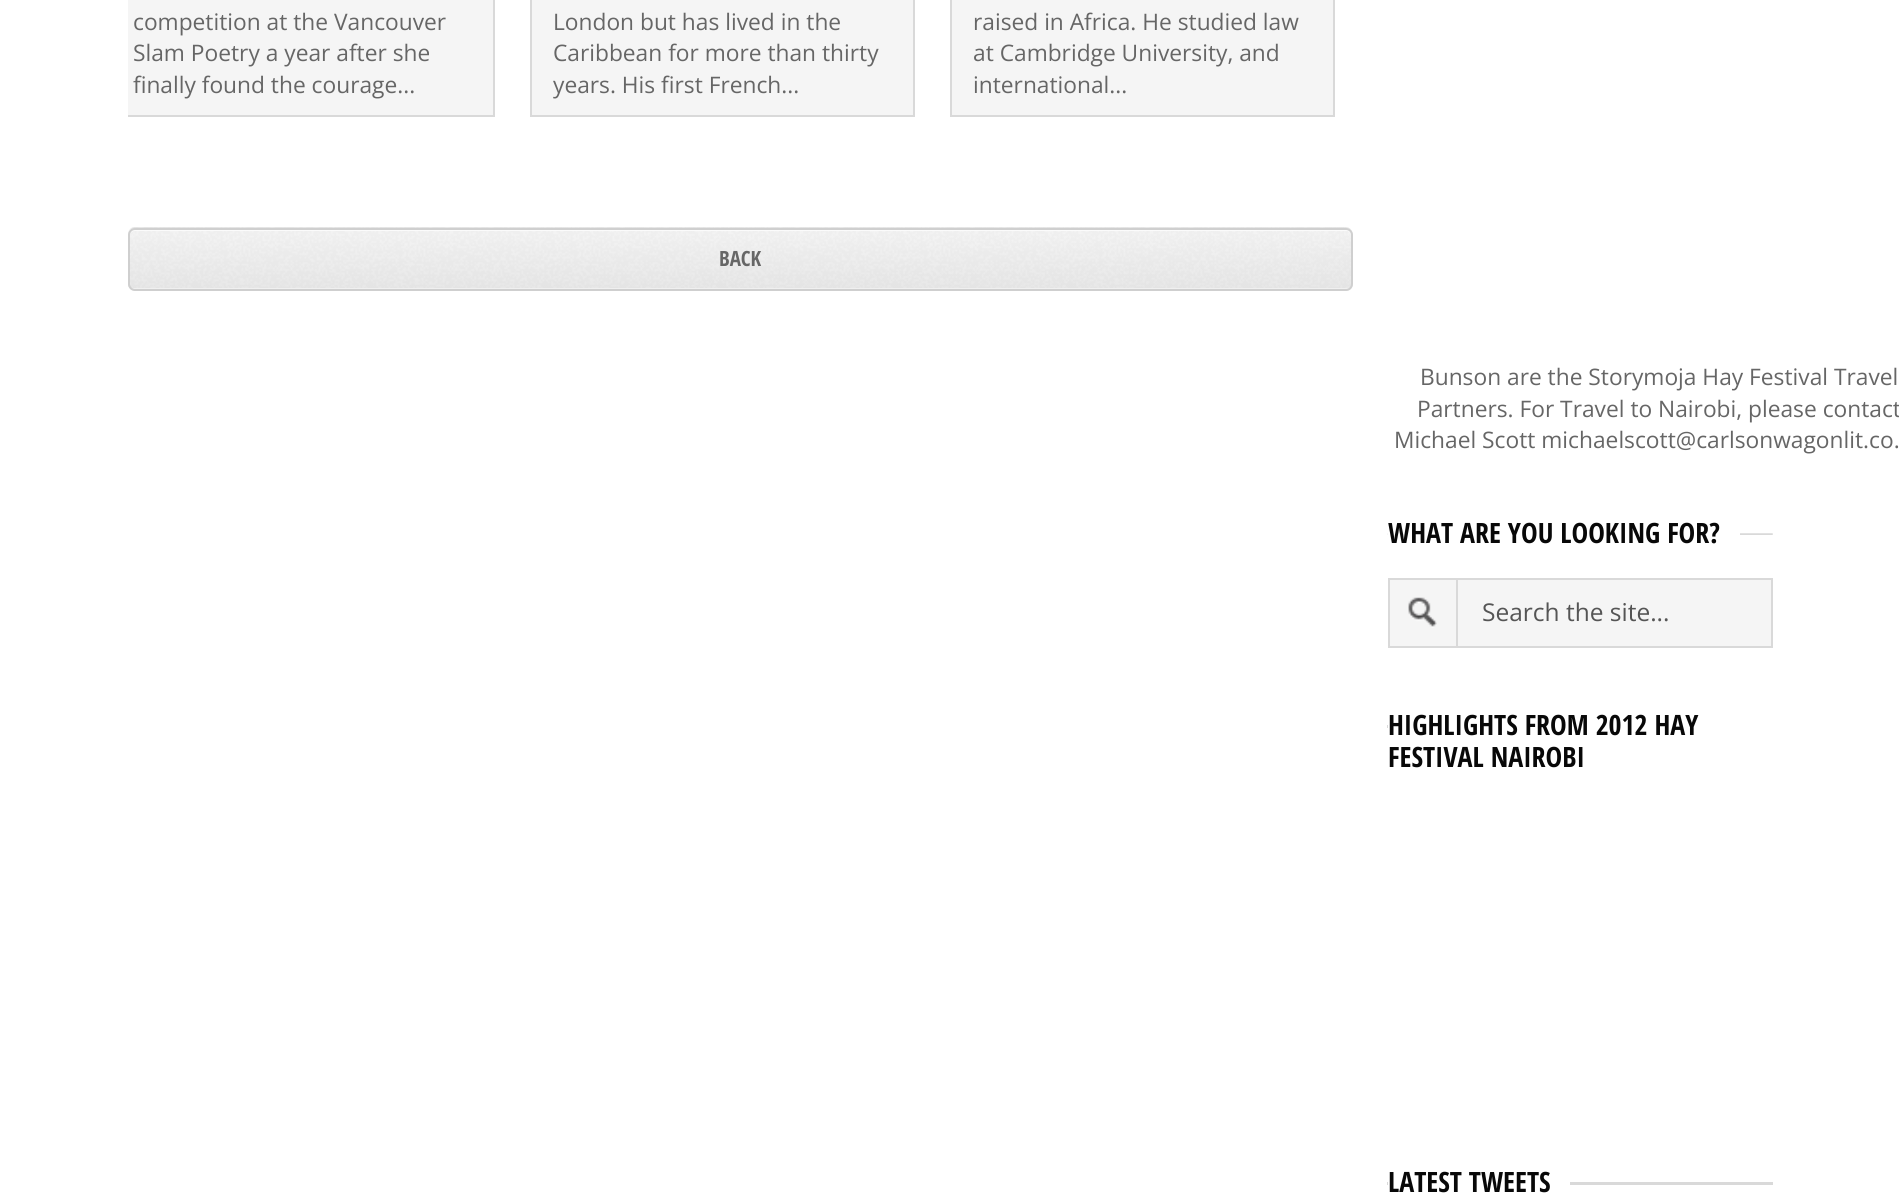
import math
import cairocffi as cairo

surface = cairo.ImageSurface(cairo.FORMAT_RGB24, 1899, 1196)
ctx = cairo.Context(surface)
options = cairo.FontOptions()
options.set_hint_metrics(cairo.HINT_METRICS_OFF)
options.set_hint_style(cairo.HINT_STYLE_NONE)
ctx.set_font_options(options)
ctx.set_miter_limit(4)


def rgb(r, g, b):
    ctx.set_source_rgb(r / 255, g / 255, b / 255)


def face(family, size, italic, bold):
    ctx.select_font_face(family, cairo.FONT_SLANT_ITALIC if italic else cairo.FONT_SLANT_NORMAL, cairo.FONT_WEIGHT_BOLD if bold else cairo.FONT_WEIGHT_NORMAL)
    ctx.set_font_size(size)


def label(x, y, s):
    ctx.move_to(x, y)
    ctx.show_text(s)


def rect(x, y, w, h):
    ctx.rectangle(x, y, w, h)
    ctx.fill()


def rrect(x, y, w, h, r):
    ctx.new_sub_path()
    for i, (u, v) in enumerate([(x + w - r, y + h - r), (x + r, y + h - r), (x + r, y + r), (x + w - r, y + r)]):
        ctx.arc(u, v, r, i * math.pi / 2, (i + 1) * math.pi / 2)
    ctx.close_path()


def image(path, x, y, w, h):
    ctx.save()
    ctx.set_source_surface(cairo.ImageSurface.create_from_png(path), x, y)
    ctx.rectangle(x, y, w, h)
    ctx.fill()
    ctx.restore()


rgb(255, 255, 255)
ctx.paint()
rgb(245, 245, 245)
rect(128, 0, 365, 115)
ctx.save()
ctx.rectangle(128, 0, 1225, 149)
ctx.clip()
ctx.rectangle(111, -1, 383, 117)
rgb(217, 217, 217)
ctx.stroke()
ctx.restore()
face('Open Sans', 22.75, 0, 0)
rgb(102, 102, 102)
label(133, 30, 'competition at the Vancouver')
label(133, 61, 'Slam Poetry a year after she')
label(133, 93, 'finally found the courage...')
rgb(245, 245, 245)
ctx.rectangle(531, -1, 383, 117)
ctx.fill_preserve()
rgb(217, 217, 217)
ctx.stroke()
rgb(102, 102, 102)
label(553, 30, 'London but has lived in the')
label(553, 61, 'Caribbean for more than thirty')
label(553, 93, 'years. His first French...')
rgb(245, 245, 245)
ctx.rectangle(951, -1, 383, 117)
ctx.fill_preserve()
rgb(217, 217, 217)
ctx.stroke()
rgb(102, 102, 102)
label(973, 30, 'raised in Africa. He studied law')
label(973, 61, 'at Cambridge University, and')
label(973, 93, 'international...')
rgb(240, 240, 240)
rrect(128, 228, 1225, 63, 7)
ctx.fill()
image('image0.png', 128, 227, 1225, 61)
rgb(251, 251, 251)
ctx.new_path()
ctx.move_to(135, 231)
ctx.line_to(1346, 231)
ctx.curve_to(1349, 231, 1351, 233, 1351, 236)
ctx.line_to(1351, 234)
ctx.curve_to(1351, 231, 1349, 229, 1346, 229)
ctx.line_to(135, 229)
ctx.curve_to(132, 229, 130, 231, 130, 234)
ctx.line_to(130, 236)
ctx.curve_to(130, 233, 132, 231, 135, 231)
ctx.close_path()
ctx.fill()
rrect(129, 229, 1223, 61, 6)
rgb(207, 207, 207)
ctx.stroke()
face('Open Sans Condensed', 21, 0, 1)
rgb(102, 102, 102)
label(719, 266, 'BACK')
face('Open Sans', 22.75, 0, 0)
label(1420, 385, 'Bunson are the Storymoja Hay Festival Travel')
label(1417, 417, 'Partners. For Travel to Nairobi, please contact')
label(1394, 448, 'Michael Scott michaelscott@carlsonwagonlit.co.')
image('image1.png', 1387, 533, 386, 2)
rgb(255, 255, 255)
rect(1388, 533, 352, 2)
face('Open Sans Condensed', 28, 0, 1)
rgb(8, 8, 8)
label(1388, 543, 'WHAT ARE YOU LOOKING FOR?')
rgb(245, 245, 245)
ctx.rectangle(1389, 579, 383, 68)
ctx.fill_preserve()
rgb(217, 217, 217)
ctx.stroke()
image('image2.png', 1408, 597, 29, 31)
rect(1456, 579, 2, 67)
face('Open Sans', 24.5, 0, 0)
rgb(85, 85, 85)
label(1482, 621, 'Search the site...')
rgb(217, 217, 217)
rect(1387, 725, 1, 3)
face('Open Sans Condensed', 28, 0, 1)
rgb(8, 8, 8)
label(1388, 735, 'HIGHLIGHTS FROM 2012 HAY')
label(1388, 767, 'FESTIVAL NAIROBI')
rgb(217, 217, 217)
rect(1387, 1182, 386, 3)
rgb(255, 255, 255)
rect(1388, 1182, 182, 3)
rgb(8, 8, 8)
label(1388, 1192, 'LATEST TWEETS')
surface.write_to_png('render.png')
